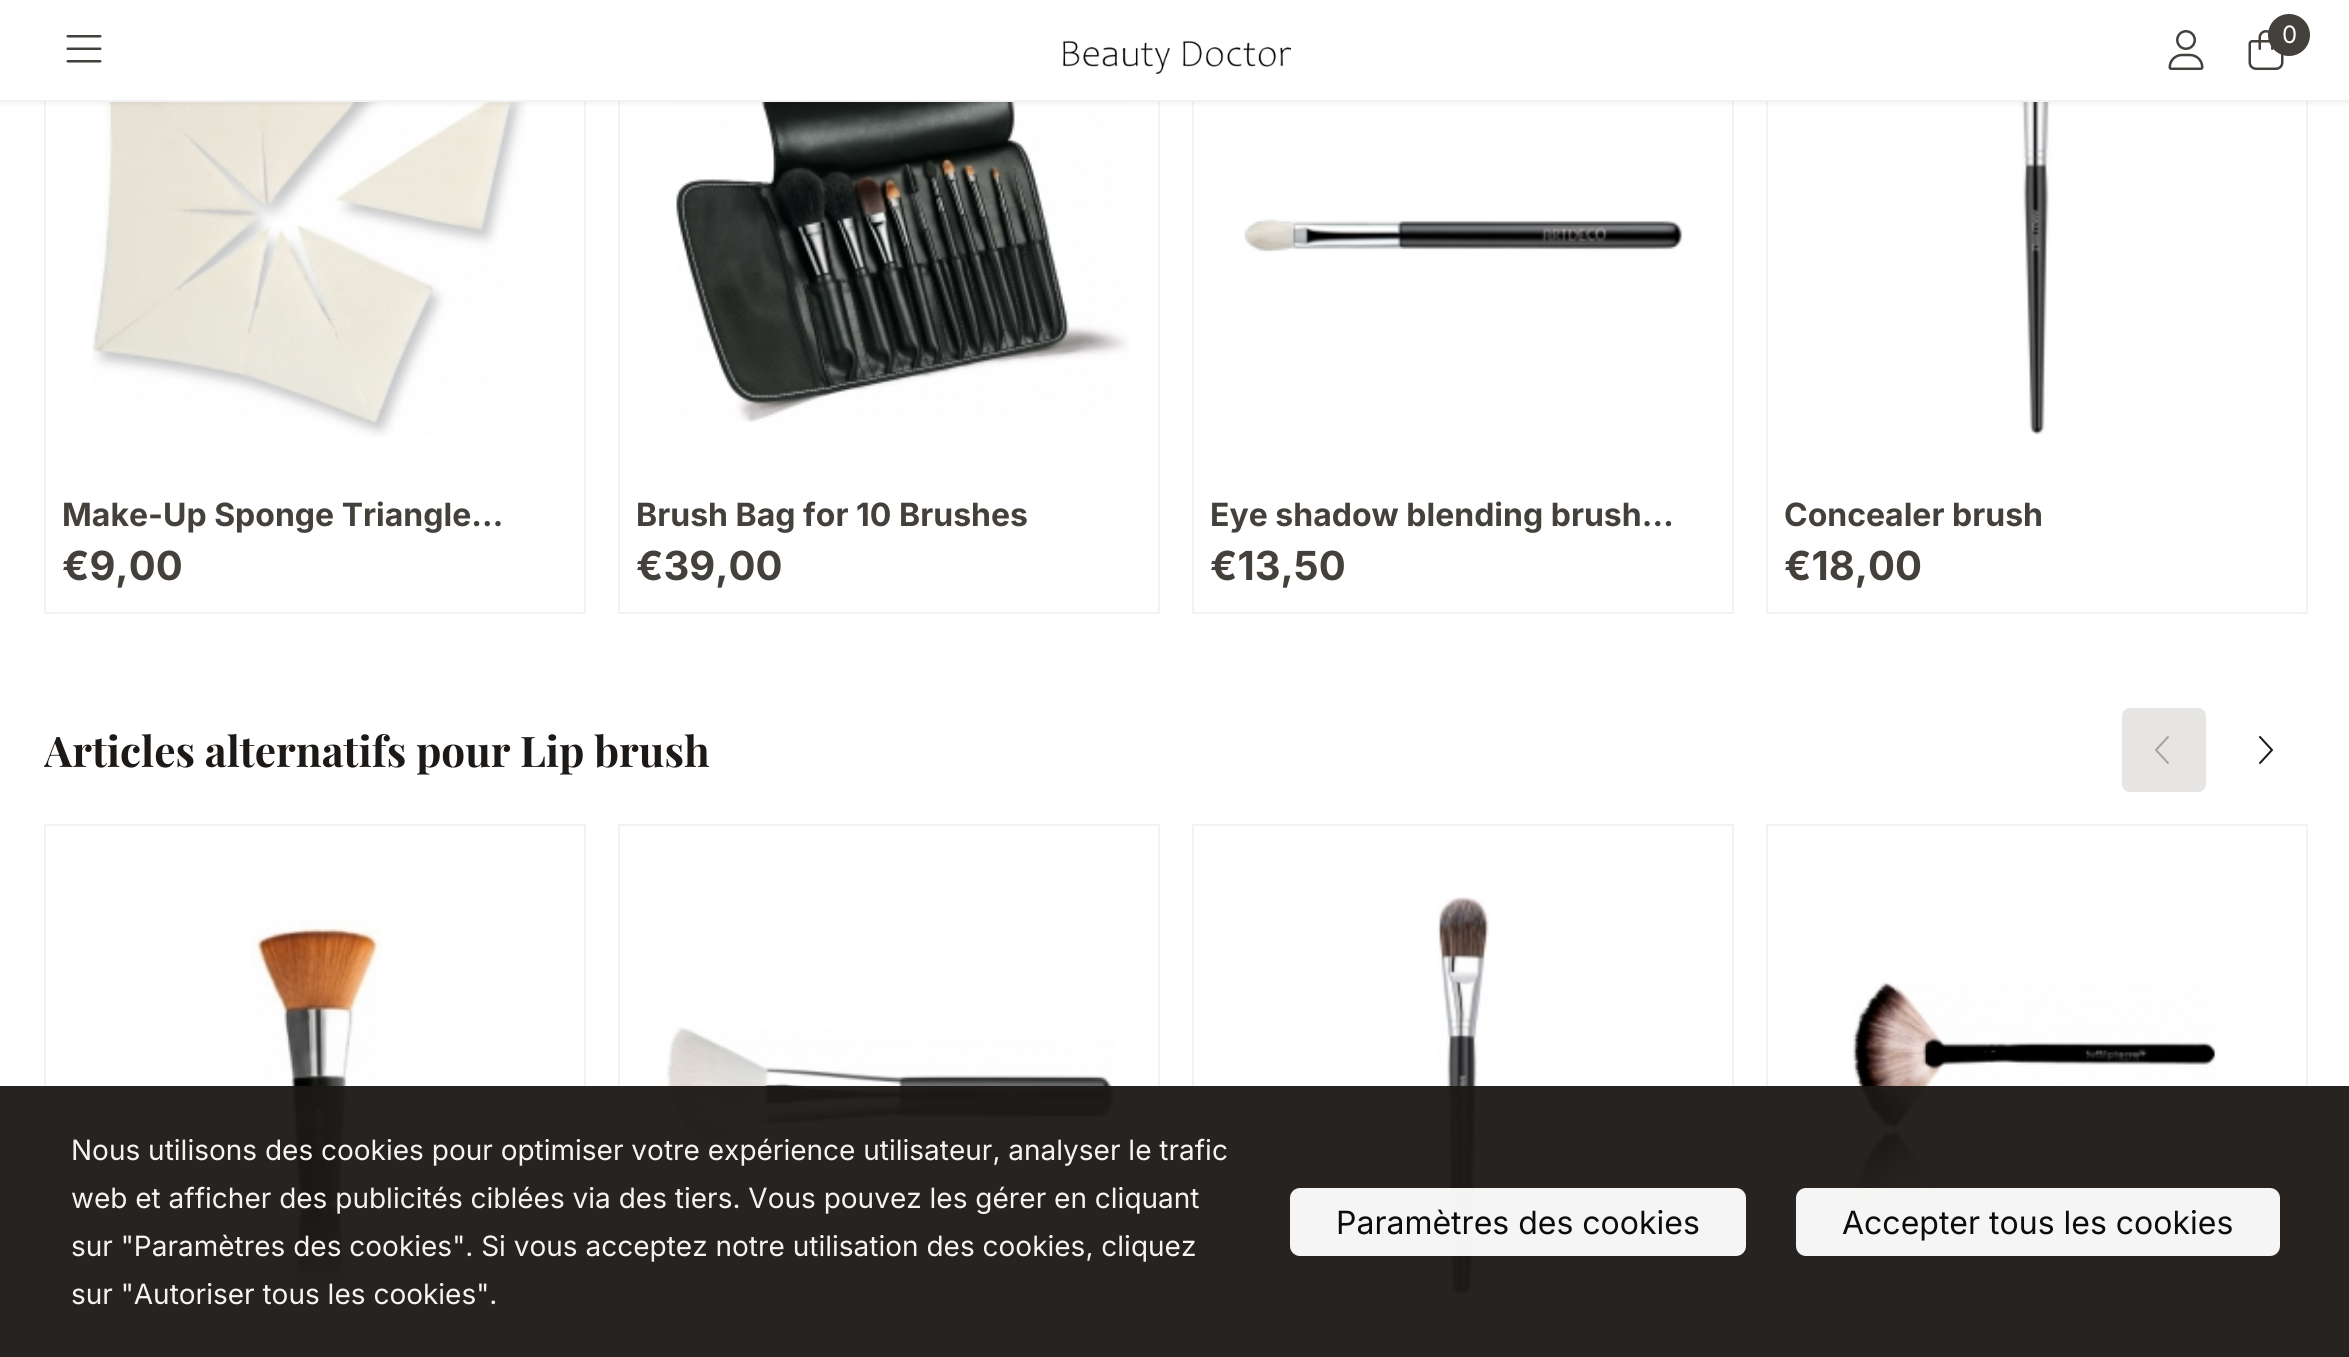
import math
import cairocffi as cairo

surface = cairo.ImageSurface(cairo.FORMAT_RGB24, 2349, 1357)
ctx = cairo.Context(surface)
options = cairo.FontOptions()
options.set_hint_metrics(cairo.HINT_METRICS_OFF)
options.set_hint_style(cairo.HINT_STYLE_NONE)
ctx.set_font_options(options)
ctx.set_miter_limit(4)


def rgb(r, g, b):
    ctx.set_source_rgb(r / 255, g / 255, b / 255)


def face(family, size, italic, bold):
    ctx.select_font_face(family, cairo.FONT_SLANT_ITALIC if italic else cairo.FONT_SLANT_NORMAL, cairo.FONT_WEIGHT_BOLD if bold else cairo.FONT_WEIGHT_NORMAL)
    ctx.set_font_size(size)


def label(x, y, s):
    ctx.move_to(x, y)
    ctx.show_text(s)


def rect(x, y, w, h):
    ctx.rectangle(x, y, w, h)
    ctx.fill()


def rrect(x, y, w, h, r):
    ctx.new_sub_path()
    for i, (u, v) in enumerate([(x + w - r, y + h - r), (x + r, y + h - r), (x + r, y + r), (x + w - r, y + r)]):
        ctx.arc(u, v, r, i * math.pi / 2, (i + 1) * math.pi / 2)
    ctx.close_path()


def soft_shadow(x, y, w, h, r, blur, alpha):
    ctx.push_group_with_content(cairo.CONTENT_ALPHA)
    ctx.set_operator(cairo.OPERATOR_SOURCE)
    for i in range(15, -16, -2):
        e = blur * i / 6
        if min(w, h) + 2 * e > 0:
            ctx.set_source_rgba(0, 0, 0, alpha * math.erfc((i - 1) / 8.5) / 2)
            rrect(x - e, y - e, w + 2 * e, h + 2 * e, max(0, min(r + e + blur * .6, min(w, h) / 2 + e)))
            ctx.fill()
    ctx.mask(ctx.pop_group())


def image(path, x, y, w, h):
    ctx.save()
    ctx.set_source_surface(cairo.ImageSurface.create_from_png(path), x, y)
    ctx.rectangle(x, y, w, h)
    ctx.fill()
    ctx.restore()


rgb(255, 255, 255)
ctx.paint()
rrect(45, -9, 540, 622, 7)
rgb(242, 242, 242)
ctx.stroke()
rgb(255, 255, 255)
rrect(44, -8, 542, 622, 8)
ctx.fill()
ctx.rectangle(45, -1, 540, 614)
ctx.set_source_rgba(0, 0, 0, 0.05)
ctx.stroke()
image('image4.png', 92, 102, 434, 335)
rrect(619, -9, 540, 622, 7)
rgb(242, 242, 242)
ctx.stroke()
rgb(255, 255, 255)
rrect(618, -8, 542, 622, 8)
ctx.fill()
ctx.rectangle(619, -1, 540, 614)
ctx.set_source_rgba(0, 0, 0, 0.05)
ctx.stroke()
image('image5.png', 676, 102, 453, 321)
rrect(1193, -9, 540, 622, 7)
rgb(242, 242, 242)
ctx.stroke()
rgb(255, 255, 255)
rrect(1192, -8, 542, 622, 8)
ctx.fill()
ctx.rectangle(1193, -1, 540, 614)
ctx.set_source_rgba(0, 0, 0, 0.05)
ctx.stroke()
ctx.save()
ctx.rectangle(44, 0, 2262, 630)
ctx.clip()
rrect(1767, -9, 540, 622, 7)
rgb(242, 242, 242)
ctx.stroke()
rgb(255, 255, 255)
rrect(1766, -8, 542, 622, 8)
ctx.fill()
ctx.restore()
ctx.rectangle(1767, -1, 540, 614)
ctx.stroke()
image('image7.png', 2019, 102, 34, 333)
rgb(0, 0, 0)
soft_shadow(0, 2, 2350, 102, 0, 2, 0.05)
rgb(255, 255, 255)
rect(0, 0, 2349, 100)
rgb(242, 242, 242)
rect(0, 100, 2349, 2)
image('image0.png', 66, 35, 36, 28)
image('image1.png', 1062, 40, 230, 34)
image('image2.png', 2168, 30, 36, 40)
image('image3.png', 2248, 30, 36, 40)
rgb(68, 64, 60)
ctx.arc(2289, 35, 21, 0, 2 * math.pi)
ctx.fill()
face('Inter', 24, 0, 0)
rgb(255, 255, 255)
label(2282, 43, '0')
face('Inter', 32, 0, 1)
rgb(68, 64, 60)
label(62, 526, 'Make-Up Sponge Triangle…')
face('Inter', 40, 0, 1)
label(62, 580, '€9,00')
face('Inter', 32, 0, 1)
label(636, 526, 'Brush Bag for 10 Brushes')
face('Inter', 40, 0, 1)
label(636, 580, '€39,00')
image('image6.png', 1244, 219, 440, 34)
face('Inter', 32, 0, 1)
label(1210, 526, 'Eye shadow blending brush…')
face('Inter', 40, 0, 1)
label(1210, 580, '€13,50')
face('Inter', 32, 0, 1)
label(1784, 526, 'Concealer brush')
face('Inter', 40, 0, 1)
label(1784, 580, '€18,00')
ctx.save()
ctx.rectangle(44, 708, 2262, 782)
ctx.clip()
face('Playfair Display', 42.25, 0, 1)
rgb(28, 25, 23)
label(44, 767, 'Articles alternatifs pour')
ctx.restore()
face('Playfair Display', 42.25, 0, 1)
rgb(28, 25, 23)
label(520, 767, 'Lip brush')
rgb(231, 229, 228)
rrect(2123, 709, 82, 82, 7)
ctx.fill_preserve()
ctx.stroke()
image('image8.png', 2155, 736, 14, 28)
image('image9.png', 2259, 736, 14, 28)
rrect(45, 825, 540, 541, 7)
rgb(242, 242, 242)
ctx.stroke()
rgb(255, 255, 255)
rrect(44, 824, 542, 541, 8)
ctx.fill()
ctx.rectangle(45, 825, 540, 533)
ctx.set_source_rgba(0, 0, 0, 0.05)
ctx.stroke()
image('image10.png', 250, 918, 132, 396)
rrect(619, 825, 540, 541, 7)
rgb(242, 242, 242)
ctx.stroke()
rgb(255, 255, 255)
rrect(618, 824, 542, 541, 8)
ctx.fill()
ctx.rectangle(619, 825, 540, 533)
ctx.set_source_rgba(0, 0, 0, 0.05)
ctx.stroke()
image('image11.png', 666, 1027, 449, 119)
rrect(1193, 825, 540, 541, 7)
rgb(242, 242, 242)
ctx.stroke()
rgb(255, 255, 255)
rrect(1192, 824, 542, 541, 8)
ctx.fill()
ctx.rectangle(1193, 825, 540, 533)
ctx.set_source_rgba(0, 0, 0, 0.05)
ctx.stroke()
image('image12.png', 1437, 897, 52, 398)
ctx.save()
ctx.rectangle(44, 708, 2262, 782)
ctx.clip()
rrect(1767, 825, 540, 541, 7)
rgb(242, 242, 242)
ctx.stroke()
rgb(255, 255, 255)
rrect(1766, 824, 542, 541, 8)
ctx.fill()
ctx.restore()
ctx.rectangle(1767, 825, 540, 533)
ctx.stroke()
image('image13.png', 1852, 982, 365, 251)
ctx.set_source_rgba(0.11, 0.098, 0.09, 0.95)
rect(0, 1086, 2349, 271)
face('Inter', 28, 0, 0)
rgb(244, 244, 244)
label(71, 1160, 'Nous utilisons des cookies pour optimiser votre expérience utilisateur, analyser le trafic')
label(71, 1208, 'web et afficher des publicités ciblées via des tiers. Vous pouvez les gérer en cliquant')
label(71, 1256, 'sur "Paramètres des cookies". Si vous acceptez notre utilisation des cookies, cliquez')
label(71, 1304, 'sur "Autoriser tous les cookies".')
ctx.set_source_rgba(1, 1, 1, 0.95)
rrect(1290, 1188, 456, 68, 10)
ctx.fill()
face('Inter', 32, 0, 0)
rgb(12, 12, 12)
label(1336, 1234, 'Paramètres des cookies')
ctx.set_source_rgba(1, 1, 1, 0.95)
rrect(1796, 1188, 484, 68, 10)
ctx.fill()
rgb(12, 12, 12)
label(1842, 1234, 'Accepter tous les cookies')
surface.write_to_png('render.png')
